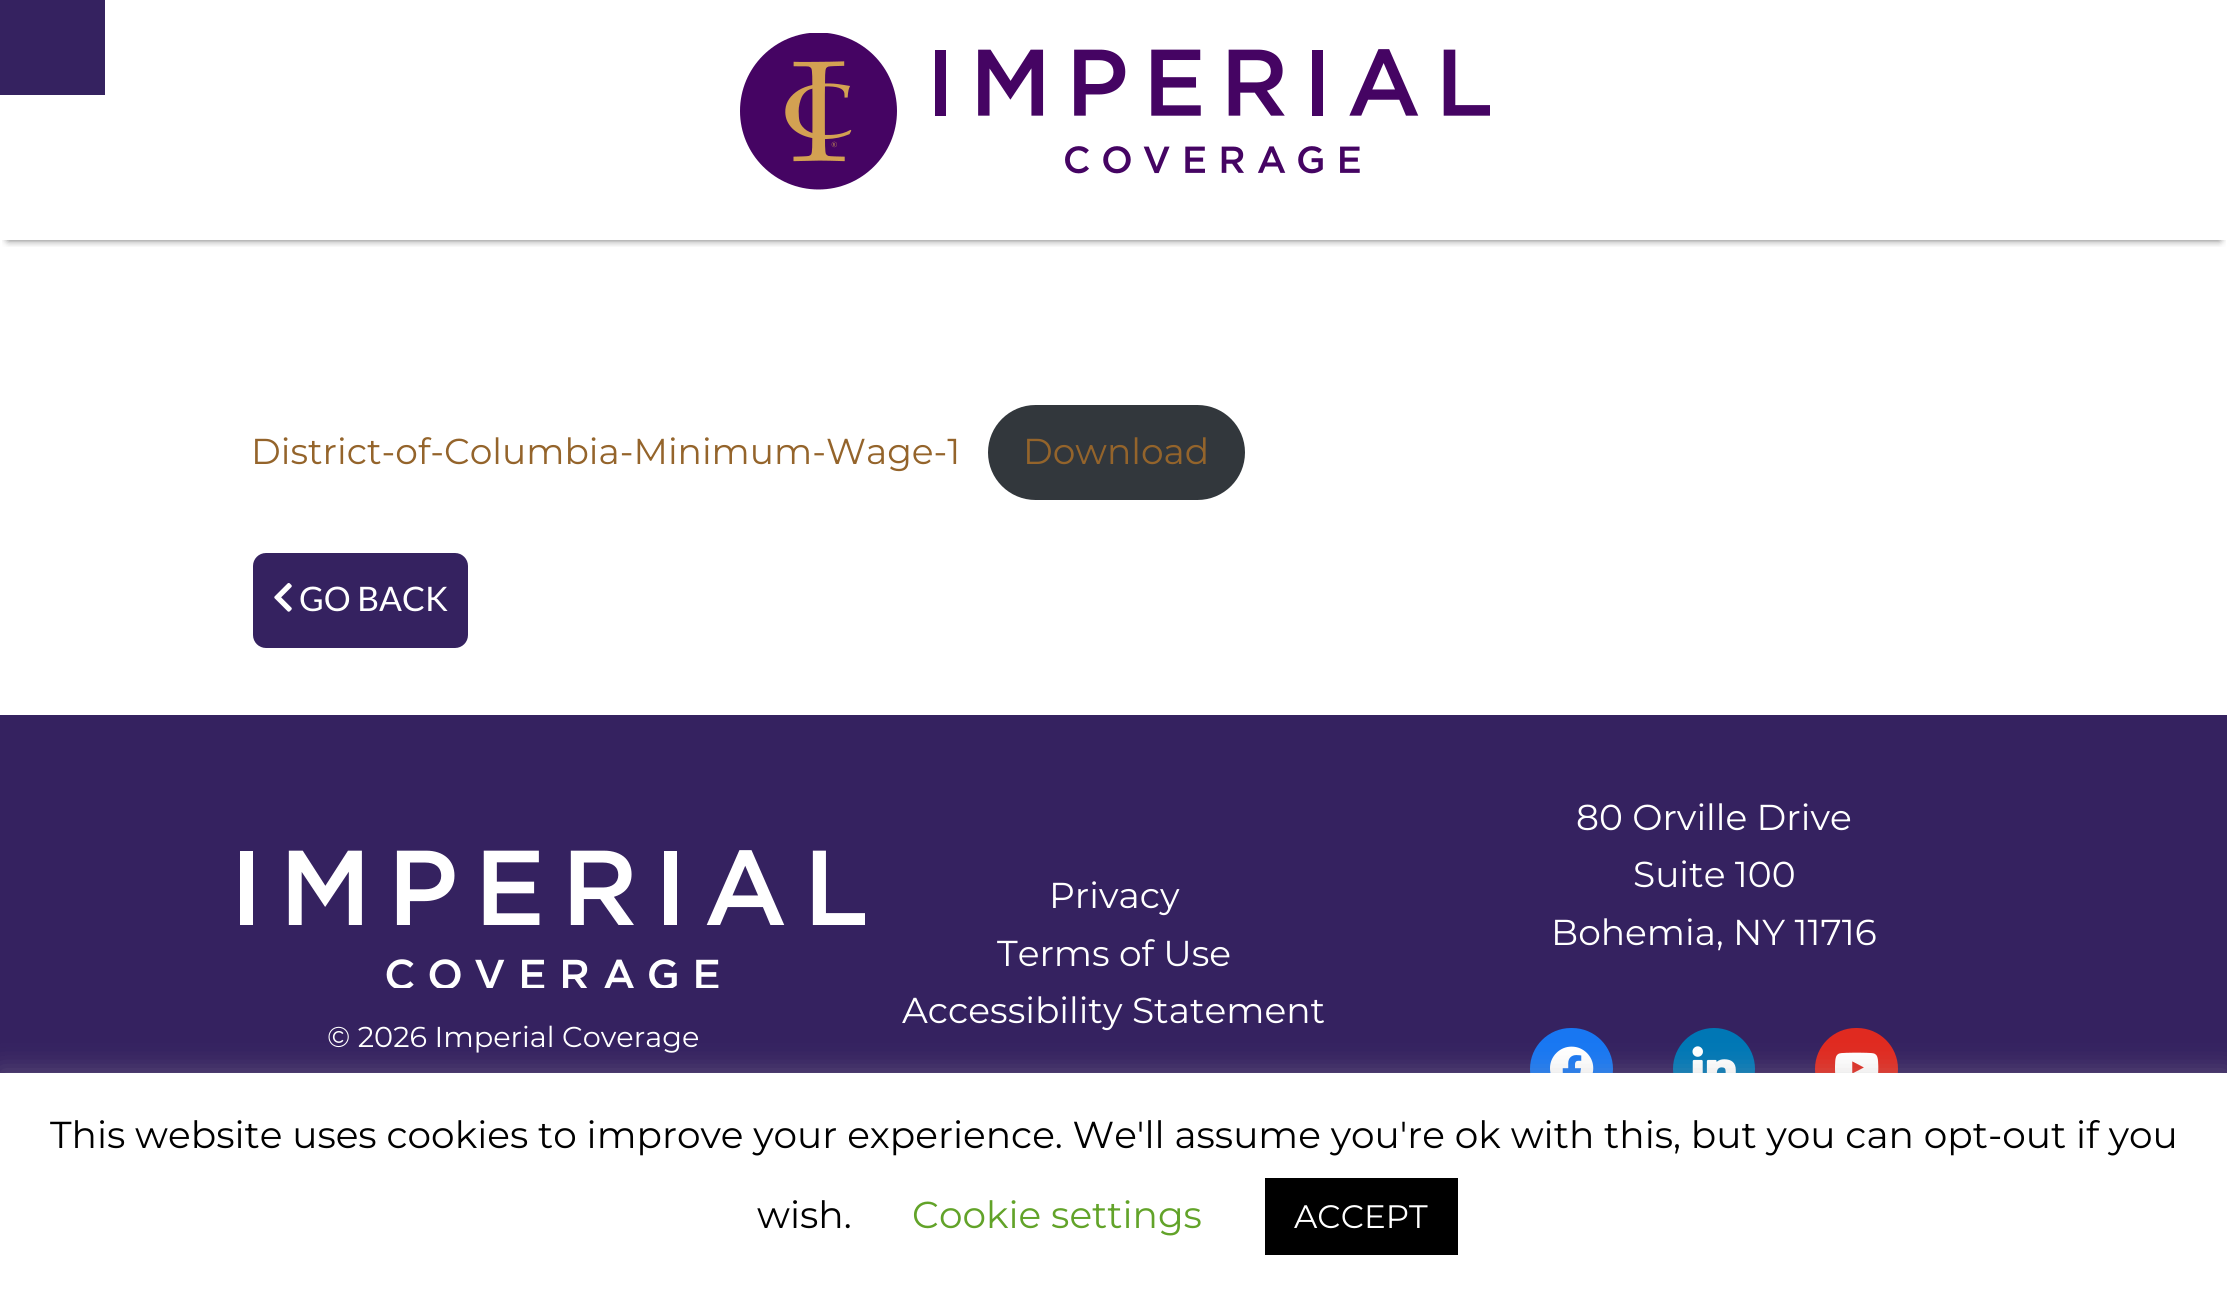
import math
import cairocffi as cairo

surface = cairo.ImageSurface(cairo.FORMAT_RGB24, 2227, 1296)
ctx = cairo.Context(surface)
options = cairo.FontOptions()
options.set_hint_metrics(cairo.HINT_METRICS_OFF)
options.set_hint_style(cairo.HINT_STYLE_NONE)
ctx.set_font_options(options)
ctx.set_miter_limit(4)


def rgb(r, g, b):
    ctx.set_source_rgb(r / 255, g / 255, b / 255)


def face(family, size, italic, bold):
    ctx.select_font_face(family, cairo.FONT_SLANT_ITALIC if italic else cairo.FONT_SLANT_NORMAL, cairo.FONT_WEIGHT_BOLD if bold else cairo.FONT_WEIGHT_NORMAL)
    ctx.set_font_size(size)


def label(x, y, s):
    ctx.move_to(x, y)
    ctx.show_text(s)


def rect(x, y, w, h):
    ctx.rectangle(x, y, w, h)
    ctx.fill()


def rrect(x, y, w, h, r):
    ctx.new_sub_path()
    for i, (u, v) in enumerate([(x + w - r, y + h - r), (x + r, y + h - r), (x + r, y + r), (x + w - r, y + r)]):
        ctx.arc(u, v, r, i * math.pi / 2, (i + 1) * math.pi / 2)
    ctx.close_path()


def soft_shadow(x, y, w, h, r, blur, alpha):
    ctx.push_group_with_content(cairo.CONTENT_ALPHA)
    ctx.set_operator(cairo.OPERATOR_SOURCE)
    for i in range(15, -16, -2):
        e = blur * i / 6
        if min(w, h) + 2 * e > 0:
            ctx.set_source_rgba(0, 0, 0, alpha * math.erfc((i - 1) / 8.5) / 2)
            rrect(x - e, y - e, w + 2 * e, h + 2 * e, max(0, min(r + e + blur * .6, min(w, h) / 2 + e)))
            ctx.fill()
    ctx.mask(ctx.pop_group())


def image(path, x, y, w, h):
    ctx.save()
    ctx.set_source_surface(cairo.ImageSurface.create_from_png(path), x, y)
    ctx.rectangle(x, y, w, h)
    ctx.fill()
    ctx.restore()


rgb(255, 255, 255)
ctx.paint()
ctx.save()
ctx.rectangle(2, 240, 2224, 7)
ctx.clip()
rgb(0, 0, 0)
soft_shadow(8, 15, 2212, 225, 0, 4, 0.6)
ctx.restore()
rgb(53, 34, 96)
rect(0, 0, 105, 95)
image('image0.png', 740, 33, 750, 157)
face('Montserrat', 36, 0, 0)
rgb(148, 100, 43)
label(251, 464, 'District-of-Columbia-Minimum-Wage-1')
rgb(50, 55, 60)
rrect(988, 405, 257, 95, 47.5)
ctx.fill()
rgb(148, 100, 43)
label(1023, 464, 'Download')
rgb(53, 34, 96)
rrect(253, 553, 215, 95, 13)
ctx.fill()
image('image1.png', 274, 583, 18, 29)
face('Lato', 33.75, 0, 0)
rgb(255, 255, 255)
label(299, 611, 'GO BACK')
rgb(53, 34, 96)
rect(0, 715, 2227, 358)
face('Montserrat', 36, 0, 0)
rgb(255, 255, 255)
label(1049, 908, 'Privacy')
label(997, 966, 'Terms of Use')
label(902, 1023, 'Accessibility Statement')
label(1576, 830, '80 Orville Drive')
label(1633, 887, 'Suite 100')
label(1551, 945, 'Bohemia, NY 11716')
rgb(24, 119, 242)
rrect(1530, 1028, 83, 82, 41)
ctx.fill()
image('image2.png', 1550, 1046, 44, 27)
rgb(0, 119, 181)
ctx.arc(1714, 1069, 41, 0, 2 * math.pi)
ctx.fill()
image('image3.png', 1692, 1046, 44, 27)
rgb(224, 42, 32)
rrect(1815, 1028, 83, 82, 41)
ctx.fill()
image('image4.png', 1835, 1052, 44, 21)
image('image5.png', 240, 850, 625, 138)
face('Montserrat', 28.75, 0, 0)
rgb(255, 255, 255)
label(327, 1047, '© 2026 Imperial Coverage')
rgb(172, 171, 171)
soft_shadow(0, 1070, 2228, 225, 0, 12.5, 0.3)
rgb(255, 255, 255)
rect(0, 1073, 2227, 223)
face('Montserrat', 37.5, 0, 0)
rgb(0, 0, 0)
label(50, 1148, 'This website uses cookies to improve your experience. We\'ll assume you\'re ok with this, but you can opt-out if you')
label(757, 1228, 'wish.')
rgb(98, 163, 41)
label(912, 1228, 'Cookie settings')
rgb(0, 0, 0)
rect(1265, 1178, 193, 77)
face('Montserrat', 32.5, 0, 0)
rgb(255, 255, 255)
label(1294, 1228, 'ACCEPT')
surface.write_to_png('render.png')
